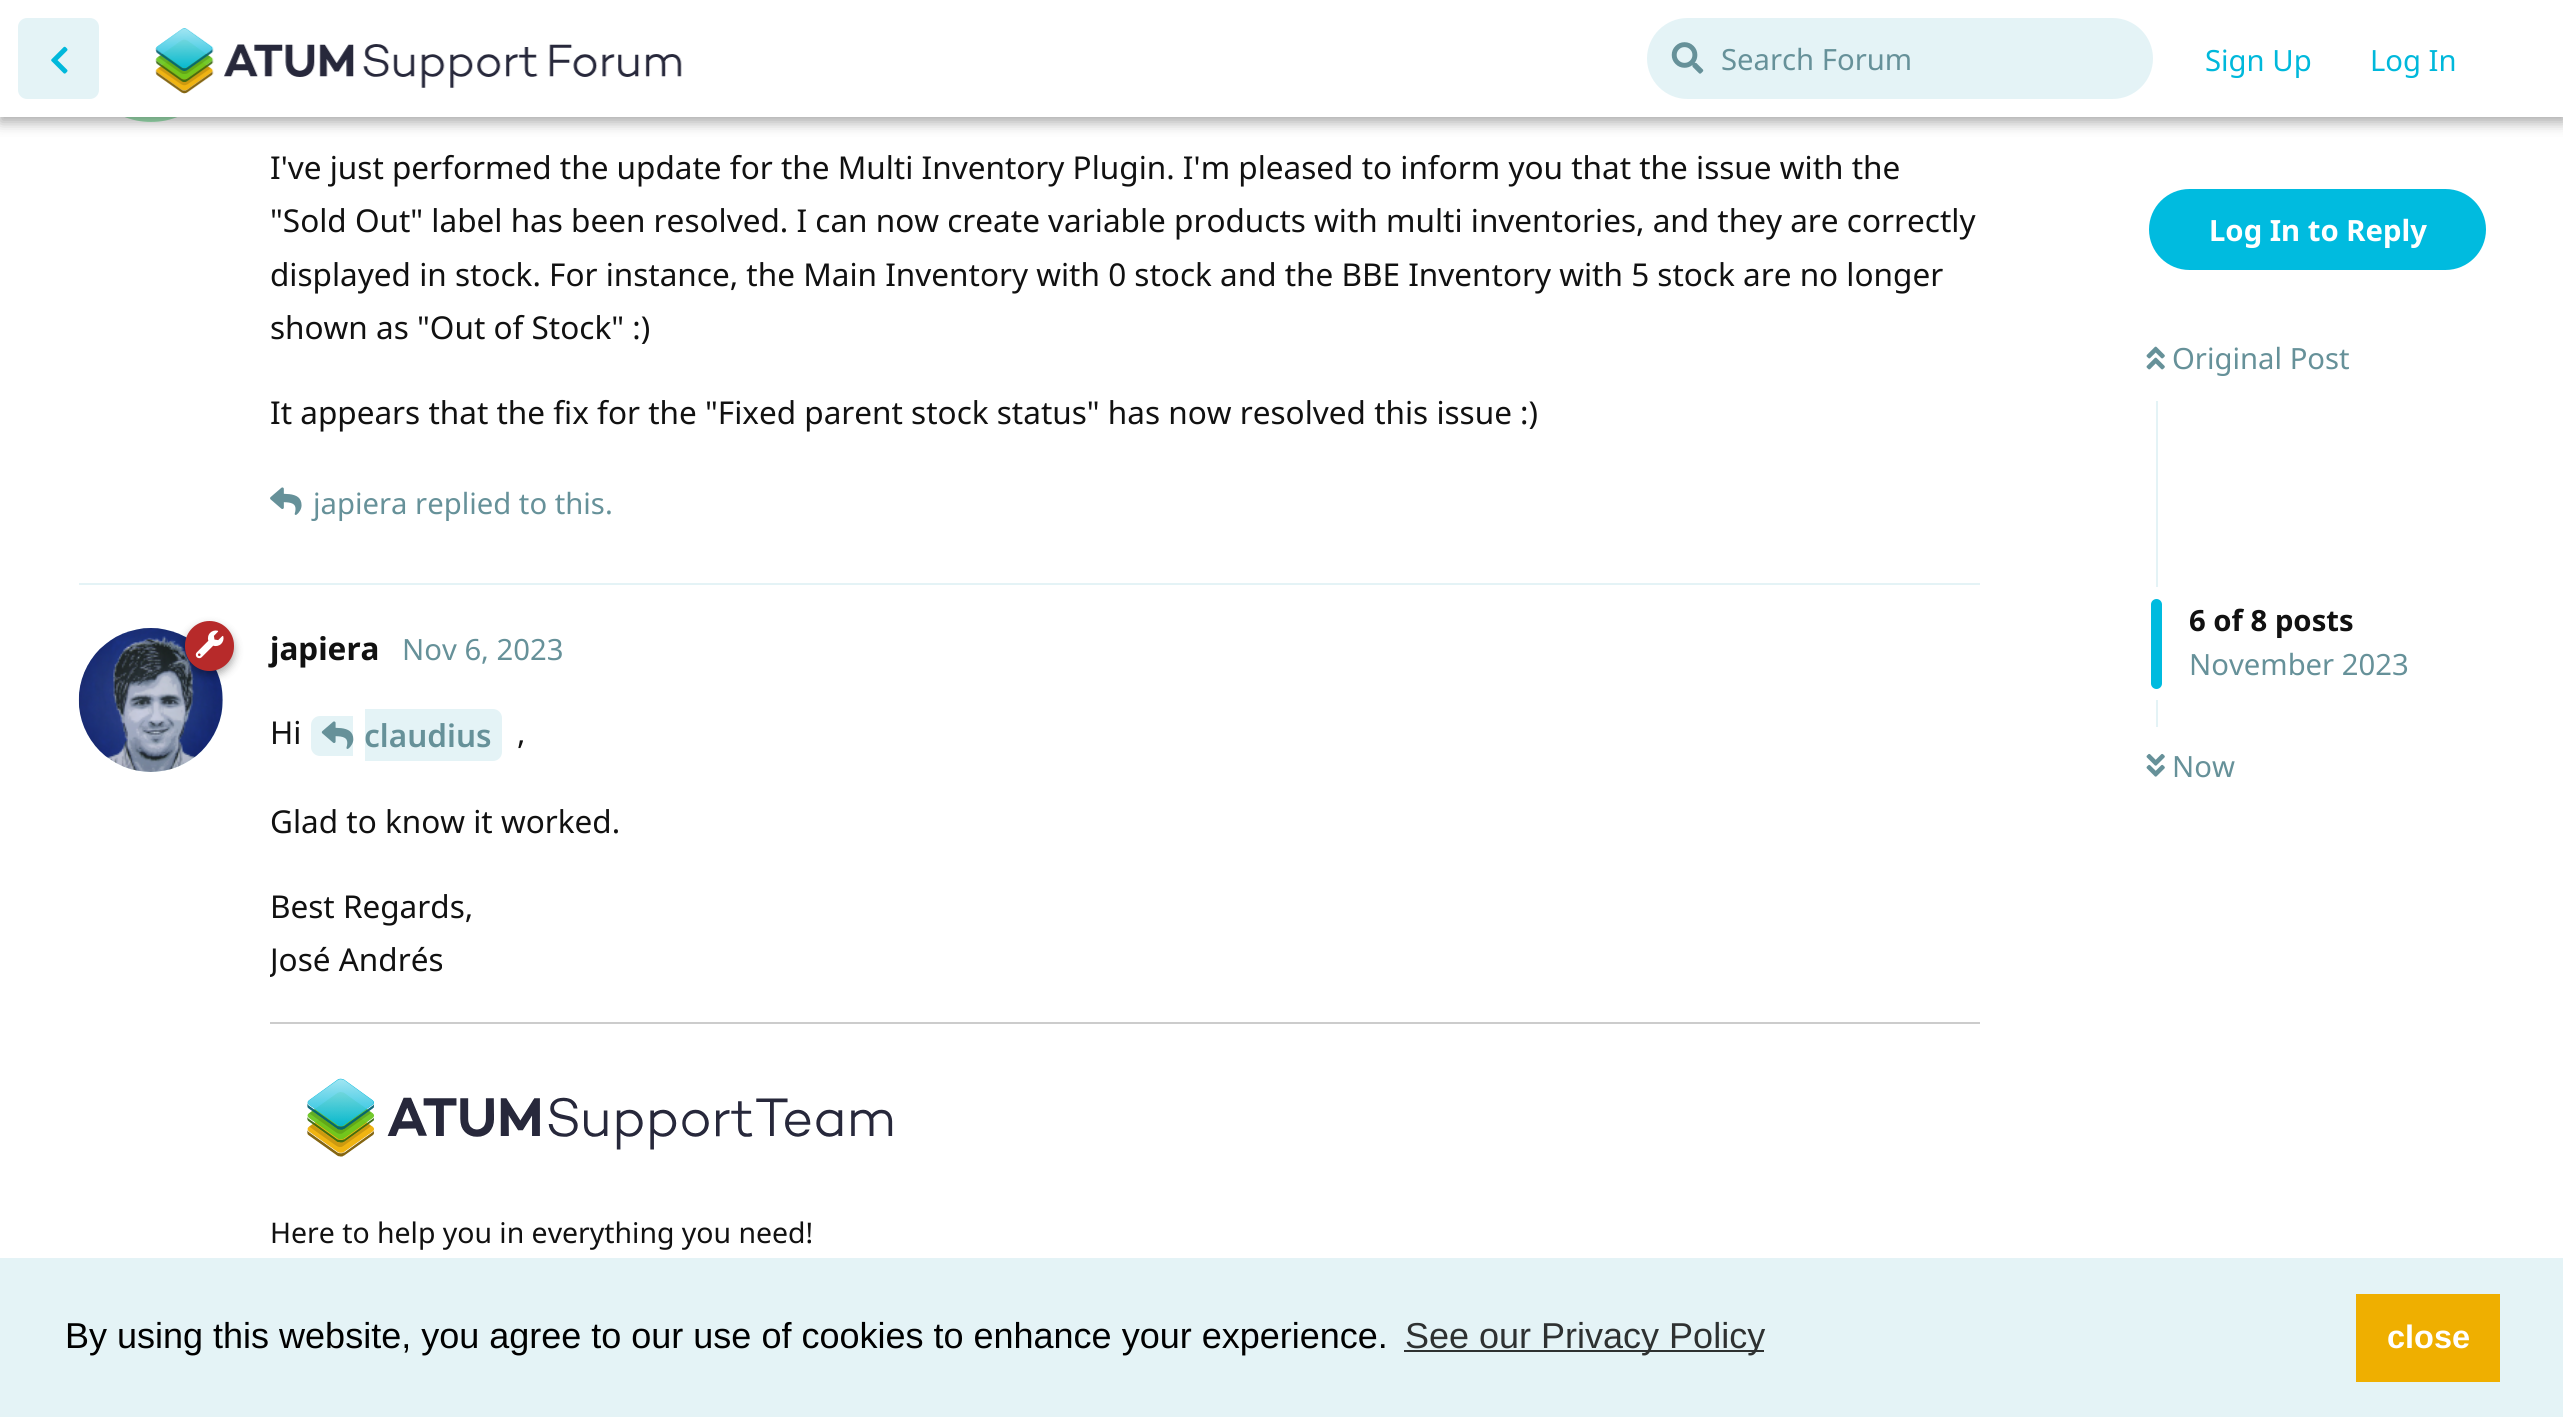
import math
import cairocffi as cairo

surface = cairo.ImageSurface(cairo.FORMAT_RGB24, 2563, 1417)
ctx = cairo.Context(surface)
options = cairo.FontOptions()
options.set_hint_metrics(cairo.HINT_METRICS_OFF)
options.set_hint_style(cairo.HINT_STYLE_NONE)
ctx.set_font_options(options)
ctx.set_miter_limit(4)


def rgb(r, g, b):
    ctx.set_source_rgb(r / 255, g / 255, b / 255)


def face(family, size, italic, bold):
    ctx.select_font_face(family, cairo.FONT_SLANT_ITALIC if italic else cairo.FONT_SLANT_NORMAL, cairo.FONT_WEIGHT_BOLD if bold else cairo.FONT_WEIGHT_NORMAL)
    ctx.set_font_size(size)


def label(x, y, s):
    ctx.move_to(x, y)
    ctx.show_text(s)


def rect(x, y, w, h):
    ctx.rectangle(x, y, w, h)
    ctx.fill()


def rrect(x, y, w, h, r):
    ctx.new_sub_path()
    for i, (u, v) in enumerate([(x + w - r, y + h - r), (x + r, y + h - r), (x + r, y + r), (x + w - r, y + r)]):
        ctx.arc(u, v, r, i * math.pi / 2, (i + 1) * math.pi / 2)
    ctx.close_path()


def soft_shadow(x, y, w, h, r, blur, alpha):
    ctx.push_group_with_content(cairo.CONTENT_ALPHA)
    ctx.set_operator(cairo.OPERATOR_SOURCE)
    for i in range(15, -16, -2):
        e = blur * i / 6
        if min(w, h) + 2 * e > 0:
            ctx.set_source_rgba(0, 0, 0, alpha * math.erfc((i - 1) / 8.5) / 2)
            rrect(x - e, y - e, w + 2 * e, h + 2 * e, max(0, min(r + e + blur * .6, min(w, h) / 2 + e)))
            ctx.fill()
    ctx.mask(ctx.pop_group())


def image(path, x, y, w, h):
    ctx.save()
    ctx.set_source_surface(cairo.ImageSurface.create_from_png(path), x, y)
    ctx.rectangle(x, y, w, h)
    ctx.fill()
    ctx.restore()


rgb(255, 255, 255)
ctx.paint()
rgb(160, 229, 181)
ctx.arc(151, 50, 72, 0, 2 * math.pi)
ctx.fill()
rgb(0, 0, 0)
soft_shadow(0, 5, 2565, 117, 0, 7, 0.35)
rgb(255, 255, 255)
rect(0, 0, 2563, 117)
rgb(228, 243, 246)
rrect(18, 18, 81, 81, 9)
ctx.fill()
image('image0.png', 51, 46, 17, 28)
image('image1.png', 155, 28, 527, 66)
rrect(1647, 18, 506, 81, 40.5)
ctx.fill()
image('image2.png', 1671, 42, 33, 32)
face('Noto Sans', 29.25, 0, 0)
rgb(102, 145, 153)
label(1721, 70, 'Search Forum')
rgb(0, 184, 219)
label(2205, 71, 'Sign Up')
label(2370, 71, 'Log In')
rgb(228, 243, 246)
rect(79, 583, 1901, 2)
face('Noto Sans', 31.5, 0, 0)
rgb(17, 17, 17)
label(270, 179, 'I\'ve just performed the update for the Multi Inventory Plugin. I\'m pleased to inform you that the issue with the')
label(270, 232, '"Sold Out" label has been resolved. I can now create variable products with multi inventories, and they are correctly')
label(270, 286, 'displayed in stock. For instance, the Main Inventory with 0 stock and the BBE Inventory with 5 stock are no longer')
label(270, 339, 'shown as "Out of Stock" :)')
label(270, 424, 'It appears that the fix for the "Fixed parent stock status" has now resolved this issue :)')
image('image3.png', 270, 487, 32, 28)
face('Noto Sans', 29.25, 0, 0)
rgb(102, 145, 153)
label(313, 514, 'japiera replied to this.')
rgb(228, 243, 246)
ctx.new_path()
ctx.arc(151, 700, 72, 0, 2 * math.pi)
ctx.fill()
image('image5.png', 78, 628, 145, 144)
rgb(0, 0, 0)
soft_shadow(185, 626, 49, 49, 24.5, 4.5, 0.35)
rgb(183, 42, 42)
rrect(185, 621, 49, 50, 24.5)
ctx.fill()
image('image4.png', 195, 630, 29, 29)
face('Noto Sans', 31.5, 0, 1)
rgb(17, 17, 17)
label(270, 660, 'japiera')
face('Noto Sans', 29.25, 0, 0)
rgb(102, 145, 153)
label(402, 660, 'Nov 6, 2023')
face('Noto Sans', 31.5, 0, 0)
rgb(17, 17, 17)
label(270, 744, 'Hi')
rgb(228, 243, 246)
ctx.new_path()
ctx.move_to(320, 716)
ctx.line_to(353, 716)
ctx.line_to(353, 756)
ctx.line_to(320, 756)
ctx.curve_to(315, 756, 311, 752, 311, 747)
ctx.line_to(311, 725)
ctx.curve_to(311, 720, 315, 716, 320, 716)
ctx.close_path()
ctx.fill()
ctx.new_path()
ctx.move_to(365, 709)
ctx.line_to(493, 709)
ctx.curve_to(498, 709, 502, 713, 502, 718)
ctx.line_to(502, 752)
ctx.curve_to(502, 757, 498, 761, 493, 761)
ctx.line_to(365, 761)
ctx.close_path()
ctx.fill()
image('image6.png', 321, 721, 33, 28)
face('Noto Sans SemiBold', 31.5, 0, 0)
rgb(102, 145, 153)
label(364, 747, 'claudius')
face('Noto Sans', 31.5, 0, 0)
rgb(17, 17, 17)
label(517, 744, ',')
label(270, 833, 'Glad to know it worked.')
label(270, 918, 'Best Regards,')
ctx.save()
ctx.rectangle(270, 707, 1710, 654)
ctx.clip()
label(270, 971, 'José Andrés')
ctx.restore()
rgb(204, 204, 204)
rect(270, 1022, 1710, 2)
image('image7.png', 307, 1078, 586, 79)
face('Noto Sans', 28.4, 0, 0)
rgb(17, 17, 17)
label(270, 1243, 'Here to help you in everything you need!')
rgb(0, 187, 223)
rrect(2149, 189, 337, 81, 40.5)
ctx.fill()
face('Noto Sans', 29.25, 0, 1)
rgb(255, 255, 255)
label(2209, 241, 'Log In to Reply')
image('image8.png', 2146, 346, 19, 24)
face('Noto Sans', 29.25, 0, 0)
rgb(102, 145, 153)
label(2172, 369, 'Original Post')
rgb(228, 243, 246)
rect(2156, 401, 2, 186)
rgb(0, 187, 223)
rrect(2151, 599, 11, 90, 5.5)
ctx.fill()
face('Noto Sans', 29.25, 0, 1)
rgb(17, 17, 17)
label(2189, 631, '6 of 8 posts')
face('Noto Sans', 29.25, 0, 0)
rgb(102, 145, 153)
label(2189, 675, 'November 2023')
rgb(228, 243, 246)
rect(2156, 700, 2, 27)
image('image9.png', 2146, 753, 19, 24)
rgb(102, 145, 153)
label(2172, 777, 'Now')
rgb(228, 243, 246)
rect(0, 1258, 2563, 159)
face('Liberation Sans', 36, 0, 0)
rgb(0, 0, 0)
label(65, 1348, 'By using this website, you agree to our use of cookies to enhance your experience.')
rgb(46, 49, 49)
rect(1404, 1350, 360, 2)
label(1405, 1348, 'See our Privacy Policy')
rgb(239, 175, 0)
rect(2356, 1294, 144, 88)
face('Liberation Sans', 32.5, 0, 1)
rgb(255, 255, 255)
label(2387, 1348, 'close')
surface.write_to_png('render.png')
